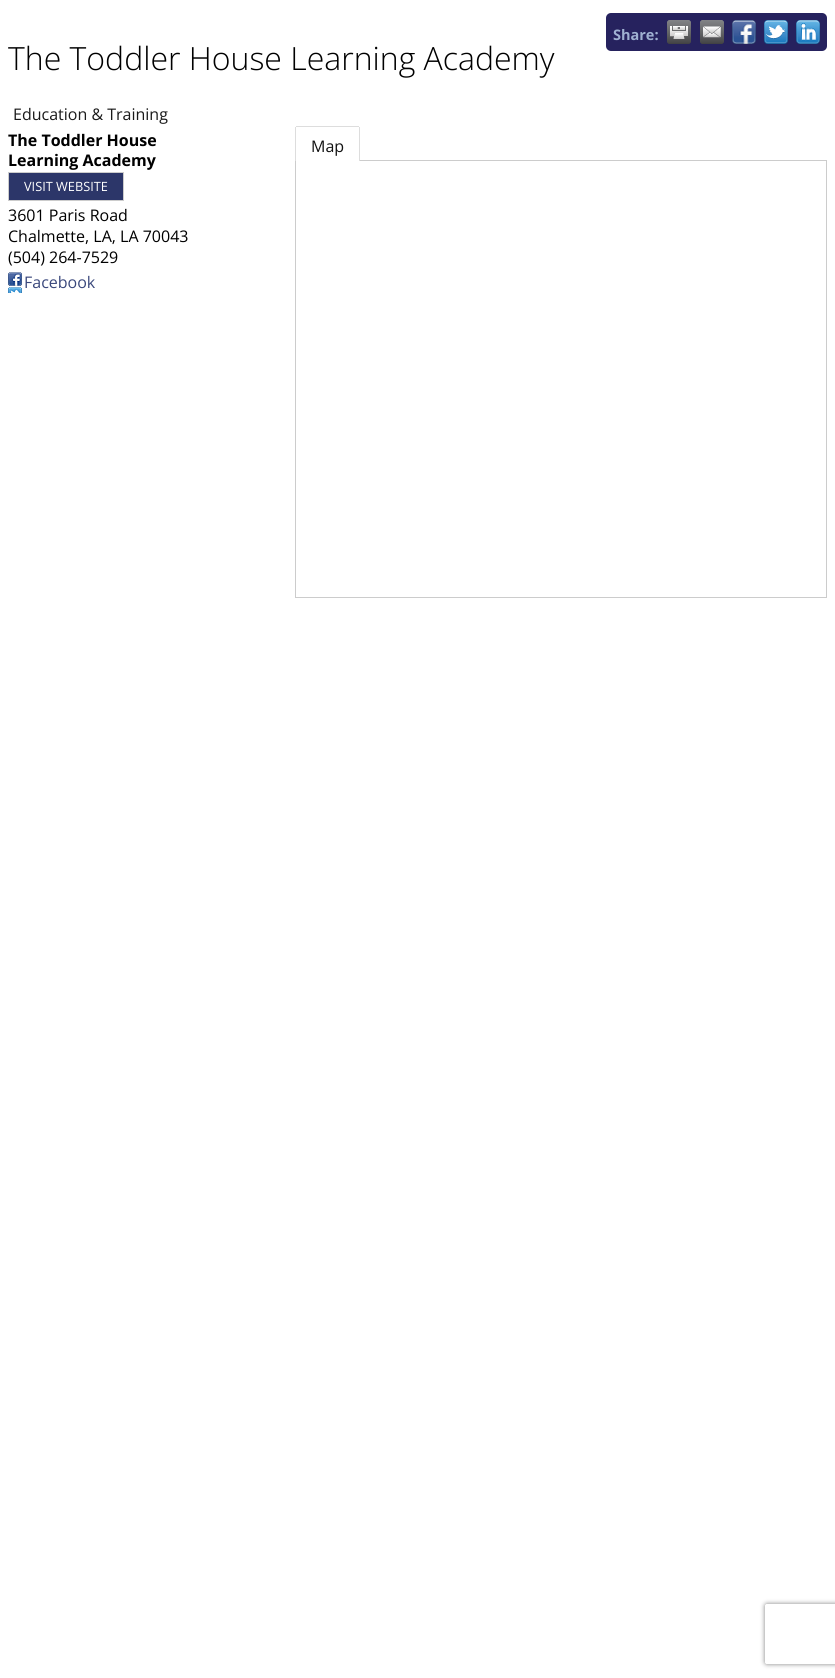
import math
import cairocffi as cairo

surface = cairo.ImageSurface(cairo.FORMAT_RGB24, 835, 1678)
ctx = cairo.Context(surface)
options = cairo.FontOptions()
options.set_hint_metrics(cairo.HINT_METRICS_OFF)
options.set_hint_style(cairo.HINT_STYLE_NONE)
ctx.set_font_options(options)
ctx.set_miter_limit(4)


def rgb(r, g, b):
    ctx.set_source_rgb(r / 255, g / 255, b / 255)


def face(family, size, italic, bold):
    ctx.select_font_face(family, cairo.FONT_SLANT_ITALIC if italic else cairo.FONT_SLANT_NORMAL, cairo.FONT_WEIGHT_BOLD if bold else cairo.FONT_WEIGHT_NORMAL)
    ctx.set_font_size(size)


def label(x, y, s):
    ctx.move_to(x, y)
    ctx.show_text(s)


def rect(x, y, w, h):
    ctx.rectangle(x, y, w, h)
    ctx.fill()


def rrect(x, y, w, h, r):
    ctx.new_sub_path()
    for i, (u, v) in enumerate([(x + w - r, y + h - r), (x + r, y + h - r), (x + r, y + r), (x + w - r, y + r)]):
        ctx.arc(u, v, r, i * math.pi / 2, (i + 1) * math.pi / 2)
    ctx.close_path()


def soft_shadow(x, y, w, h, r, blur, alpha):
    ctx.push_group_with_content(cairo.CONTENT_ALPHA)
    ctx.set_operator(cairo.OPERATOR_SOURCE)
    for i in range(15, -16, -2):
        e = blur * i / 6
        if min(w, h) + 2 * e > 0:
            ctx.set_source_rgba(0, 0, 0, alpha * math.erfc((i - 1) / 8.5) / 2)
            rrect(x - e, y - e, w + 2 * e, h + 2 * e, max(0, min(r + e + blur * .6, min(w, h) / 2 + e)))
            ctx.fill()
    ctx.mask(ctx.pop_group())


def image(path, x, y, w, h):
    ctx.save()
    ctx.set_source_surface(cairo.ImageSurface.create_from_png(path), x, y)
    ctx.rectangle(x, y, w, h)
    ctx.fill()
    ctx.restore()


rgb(255, 255, 255)
ctx.paint()
rgb(38, 34, 94)
rrect(606, 13, 221, 38, 5)
ctx.fill()
face('Open Sans', 14.5, 0, 1)
rgb(159, 176, 209)
label(613, 40, 'Share:')
image('image0.png', 667, 20, 24, 24)
image('image1.png', 700, 20, 24, 24)
image('image2.png', 732, 20, 24, 24)
image('image3.png', 764, 20, 24, 24)
image('image4.png', 796, 20, 24, 24)
face('Open Sans Light', 32, 0, 0)
rgb(0, 0, 0)
label(8, 70, 'The Toddler House Learning Academy')
face('Open Sans', 16, 0, 0)
rgb(26, 26, 26)
label(13, 120, 'Education & Training')
face('Open Sans', 16, 0, 1)
rgb(0, 0, 0)
label(8, 146, 'The Toddler House')
label(8, 166, 'Learning Academy')
rgb(44, 54, 105)
ctx.rectangle(8.5, 172.5, 115, 28)
ctx.fill_preserve()
rgb(204, 204, 204)
ctx.set_line_width(1)
ctx.stroke()
face('Open Sans', 12.75, 0, 0)
rgb(255, 255, 255)
label(24, 191, 'VISIT WEBSITE')
face('Open Sans', 16, 0, 0)
rgb(0, 0, 0)
label(8, 221, '3601 Paris Road')
label(8, 242, 'Chalmette, LA, LA 70043')
label(8, 263, '(504) 264-7529')
image('image5.png', 8, 272, 14, 21)
rgb(58, 72, 124)
label(24, 288, 'Facebook')
ctx.rectangle(295.5, 160.5, 531, 437)
rgb(204, 204, 204)
ctx.stroke()
rgb(255, 255, 255)
ctx.new_path()
ctx.move_to(297, 127)
ctx.line_to(358, 127)
ctx.curve_to(358.5, 127, 359, 127.5, 359, 128)
ctx.line_to(359, 161)
ctx.line_to(296, 161)
ctx.line_to(296, 128)
ctx.curve_to(296, 127.5, 296.5, 127, 297, 127)
ctx.close_path()
ctx.fill()
rgb(221, 221, 221)
rect(296, 126, 63, 1)
rect(359, 127, 1, 34)
rect(295, 127, 1, 34)
rgb(17, 17, 17)
label(311, 152, 'Map')
ctx.save()
ctx.set_fill_rule(cairo.FILL_RULE_EVEN_ODD)
ctx.new_path()
ctx.move_to(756, 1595)
ctx.line_to(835, 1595)
ctx.line_to(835, 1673)
ctx.line_to(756, 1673)
ctx.close_path()
ctx.move_to(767, 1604)
ctx.line_to(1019, 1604)
ctx.curve_to(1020, 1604, 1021, 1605, 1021, 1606)
ctx.line_to(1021, 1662)
ctx.curve_to(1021, 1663, 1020, 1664, 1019, 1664)
ctx.line_to(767, 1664)
ctx.curve_to(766, 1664, 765, 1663, 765, 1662)
ctx.line_to(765, 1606)
ctx.curve_to(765, 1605, 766, 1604, 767, 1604)
ctx.close_path()
ctx.clip()
rgb(128, 128, 128)
soft_shadow(765, 1604, 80, 60, 2, 2.5, 1)
ctx.restore()
surface.write_to_png('render.png')
